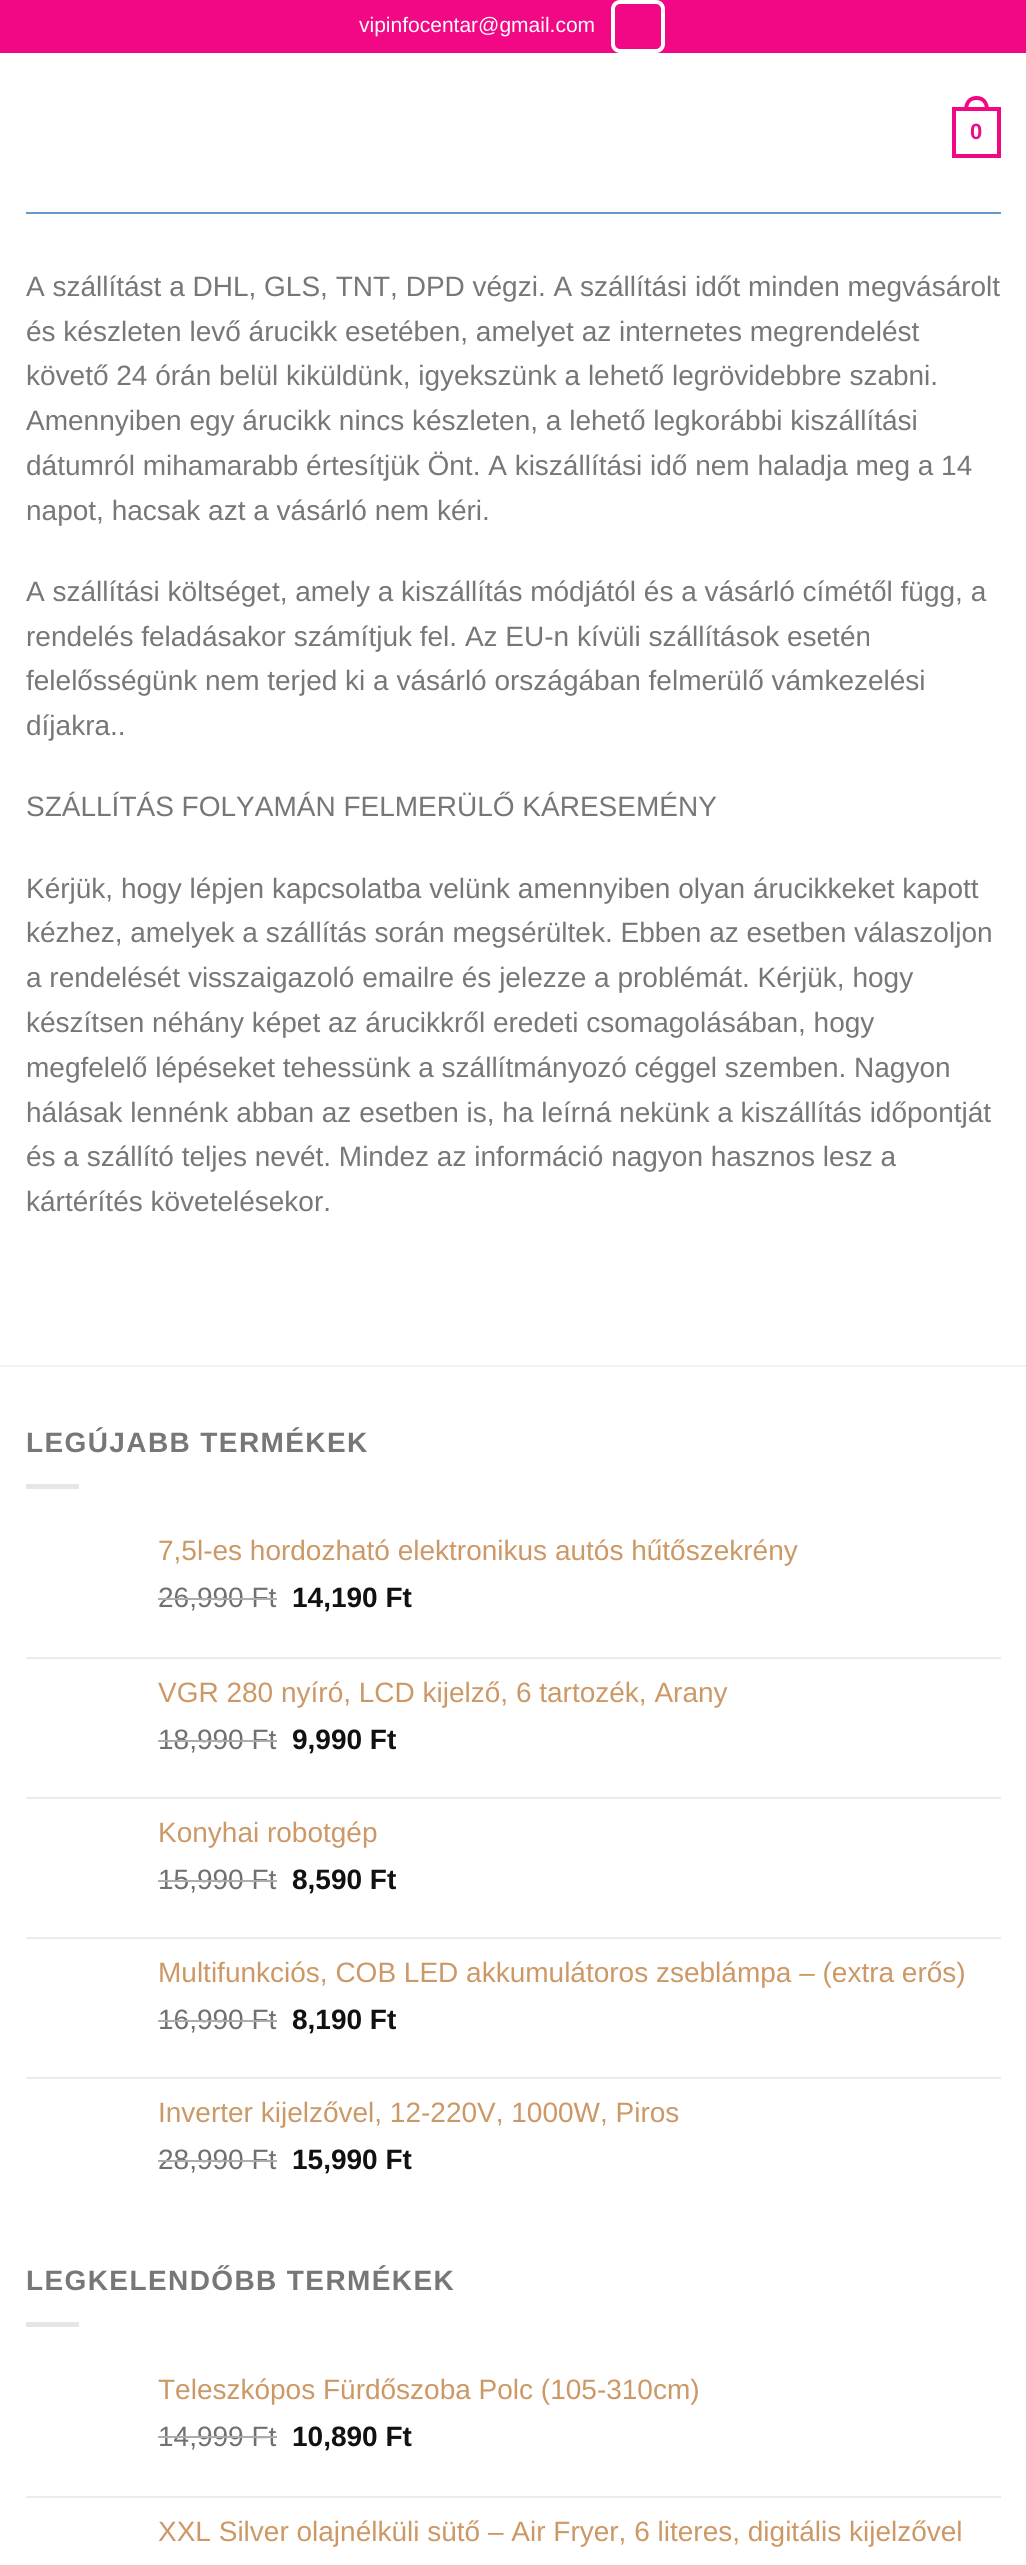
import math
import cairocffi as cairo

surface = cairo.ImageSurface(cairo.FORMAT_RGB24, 1026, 2565)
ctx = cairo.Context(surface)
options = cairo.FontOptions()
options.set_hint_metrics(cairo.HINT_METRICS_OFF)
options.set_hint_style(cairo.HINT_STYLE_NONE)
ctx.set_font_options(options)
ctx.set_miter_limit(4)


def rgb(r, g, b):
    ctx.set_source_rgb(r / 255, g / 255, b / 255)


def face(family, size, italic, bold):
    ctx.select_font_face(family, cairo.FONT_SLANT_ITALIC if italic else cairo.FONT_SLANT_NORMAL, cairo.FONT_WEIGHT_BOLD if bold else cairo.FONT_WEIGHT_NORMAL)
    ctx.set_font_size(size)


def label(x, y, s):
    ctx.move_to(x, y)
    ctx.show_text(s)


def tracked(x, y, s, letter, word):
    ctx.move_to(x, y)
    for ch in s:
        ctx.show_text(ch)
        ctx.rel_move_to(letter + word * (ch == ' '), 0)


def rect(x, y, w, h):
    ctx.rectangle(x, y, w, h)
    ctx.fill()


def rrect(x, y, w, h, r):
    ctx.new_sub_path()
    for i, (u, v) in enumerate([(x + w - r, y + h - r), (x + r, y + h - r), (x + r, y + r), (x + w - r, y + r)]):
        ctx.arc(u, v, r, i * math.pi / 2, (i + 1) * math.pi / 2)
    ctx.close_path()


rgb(255, 255, 255)
ctx.paint()
rgb(242, 7, 132)
rect(0, 0, 1026, 53)
face('Liberation Sans', 21, 0, 0)
rgb(255, 255, 255)
label(359, 32, 'vipinfocentar@gmail.com')
rrect(613, 2, 50, 49, 7)
ctx.set_line_width(4)
ctx.stroke()
ctx.rectangle(954, 109, 45, 47)
rgb(242, 7, 132)
ctx.stroke()
ctx.set_fill_rule(cairo.FILL_RULE_EVEN_ODD)
ctx.new_path()
ctx.move_to(976.5, 96)
ctx.curve_to(985, 96, 989, 102.5, 989, 110)
ctx.line_to(964, 110)
ctx.curve_to(964, 102.5, 968, 96, 976.5, 96)
ctx.close_path()
ctx.move_to(976.5, 100)
ctx.curve_to(983, 100, 985, 104.5, 985, 110)
ctx.line_to(968, 110)
ctx.curve_to(968, 104.5, 970, 100, 976.5, 100)
ctx.close_path()
ctx.fill()
face('Liberation Sans', 22, 0, 1)
label(970, 139, '0')
rgb(102, 154, 204)
rect(26, 212, 975, 2)
face('Liberation Sans', 28, 0, 0)
rgb(119, 119, 119)
label(26, 296, 'A szállítást a DHL, GLS, TNT, DPD végzi. A szállítási időt minden megvásárolt')
label(26, 341, 'és készleten levő árucikk esetében, amelyet az internetes megrendelést')
label(26, 385, 'követő 24 órán belül kiküldünk, igyekszünk a lehető legrövidebbre szabni.')
label(26, 430, 'Amennyiben egy árucikk nincs készleten, a lehető legkorábbi kiszállítási')
label(26, 475, 'dátumról mihamarabb értesítjük Önt. A kiszállítási idő nem haladja meg a 14')
label(26, 520, 'napot, hacsak azt a vásárló nem kéri.')
label(26, 601, 'A szállítási költséget, amely a kiszállítás módjától és a vásárló címétől függ, a')
label(26, 646, 'rendelés feladásakor számítjuk fel. Az EU-n kívüli szállítások esetén')
label(26, 690, 'felelősségünk nem terjed ki a vásárló országában felmerülő vámkezelési')
label(26, 735, 'díjakra..')
label(26, 816, 'SZÁLLÍTÁS FOLYAMÁN FELMERÜLŐ KÁRESEMÉNY')
label(26, 898, 'Kérjük, hogy lépjen kapcsolatba velünk amennyiben olyan árucikkeket kapott')
label(26, 942, 'kézhez, amelyek a szállítás során megsérültek. Ebben az esetben válaszoljon')
label(26, 987, 'a rendelését visszaigazoló emailre és jelezze a problémát. Kérjük, hogy')
label(26, 1032, 'készítsen néhány képet az árucikkről eredeti csomagolásában, hogy')
label(26, 1077, 'megfelelő lépéseket tehessünk a szállítmányozó céggel szemben. Nagyon')
label(26, 1122, 'hálásak lennénk abban az esetben is, ha leírná nekünk a kiszállítás időpontját')
label(26, 1166, 'és a szállító teljes nevét. Mindez az információ nagyon hasznos lesz a')
label(26, 1211, 'kártérítés követelésekor.')
rgb(242, 242, 242)
rect(0, 1365, 1026, 2)
face('Liberation Sans', 28, 0, 1)
rgb(119, 119, 119)
tracked(26, 1452, 'LEGÚJABB TERMÉKEK', 1.4, 0)
rgb(230, 230, 230)
rect(26, 1484, 53, 5)
face('Liberation Sans', 28, 0, 0)
rgb(204, 152, 102)
label(158, 1560, '7,5l-es hordozható elektronikus autós hűtőszekrény')
rgb(112, 112, 112)
label(158, 1607, '26,990 Ft')
rgb(173, 173, 173)
rect(158, 1598, 119, 2)
face('Liberation Sans', 28, 0, 1)
rgb(17, 17, 17)
label(292, 1607, '14,190 Ft')
rgb(236, 236, 236)
rect(26, 1657, 975, 2)
face('Liberation Sans', 28, 0, 0)
rgb(204, 152, 102)
label(158, 1702, 'VGR 280 nyíró, LCD kijelző, 6 tartozék, Arany')
rgb(112, 112, 112)
label(158, 1749, '18,990 Ft')
rgb(173, 173, 173)
rect(158, 1740, 119, 2)
face('Liberation Sans', 28, 0, 1)
rgb(17, 17, 17)
label(292, 1749, '9,990 Ft')
rgb(236, 236, 236)
rect(26, 1797, 975, 2)
face('Liberation Sans', 28, 0, 0)
rgb(204, 152, 102)
label(158, 1842, 'Konyhai robotgép')
rgb(112, 112, 112)
label(158, 1889, '15,990 Ft')
rgb(173, 173, 173)
rect(158, 1880, 119, 2)
face('Liberation Sans', 28, 0, 1)
rgb(17, 17, 17)
label(292, 1889, '8,590 Ft')
rgb(236, 236, 236)
rect(26, 1937, 975, 2)
face('Liberation Sans', 28, 0, 0)
rgb(204, 152, 102)
label(158, 1982, 'Multifunkciós, COB LED akkumulátoros zseblámpa – (extra erős)')
rgb(112, 112, 112)
label(158, 2029, '16,990 Ft')
rgb(173, 173, 173)
rect(158, 2020, 119, 2)
face('Liberation Sans', 28, 0, 1)
rgb(17, 17, 17)
label(292, 2029, '8,190 Ft')
rgb(236, 236, 236)
rect(26, 2077, 975, 2)
face('Liberation Sans', 28, 0, 0)
rgb(204, 152, 102)
label(158, 2122, 'Inverter kijelzővel, 12-220V, 1000W, Piros')
rgb(112, 112, 112)
label(158, 2169, '28,990 Ft')
rgb(173, 173, 173)
rect(158, 2160, 119, 2)
face('Liberation Sans', 28, 0, 1)
rgb(17, 17, 17)
label(292, 2169, '15,990 Ft')
rgb(119, 119, 119)
tracked(26, 2290, 'LEGKELENDŐBB TERMÉKEK', 1.4, 0)
rgb(230, 230, 230)
rect(26, 2322, 53, 5)
face('Liberation Sans', 28, 0, 0)
rgb(204, 152, 102)
label(158, 2399, 'Teleszkópos Fürdőszoba Polc (105-310cm)')
rgb(112, 112, 112)
label(158, 2446, '14,999 Ft')
rgb(173, 173, 173)
rect(158, 2436, 119, 2)
face('Liberation Sans', 28, 0, 1)
rgb(17, 17, 17)
label(292, 2446, '10,890 Ft')
rgb(236, 236, 236)
rect(26, 2496, 975, 2)
face('Liberation Sans', 28, 0, 0)
rgb(204, 152, 102)
label(158, 2541, 'XXL Silver olajnélküli sütő – Air Fryer, 6 literes, digitális kijelzővel')
surface.write_to_png('render.png')
